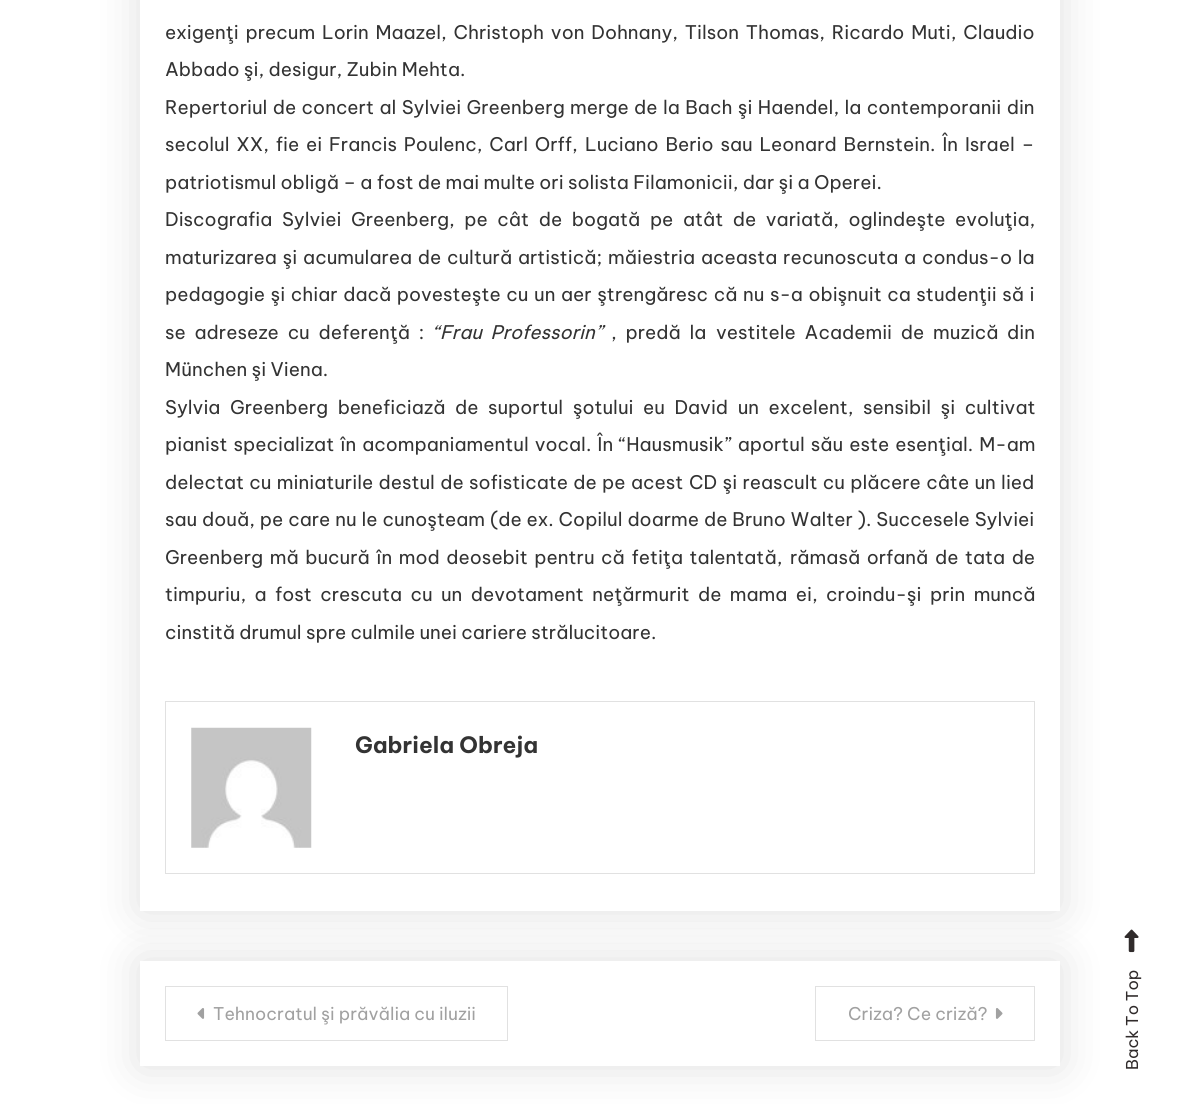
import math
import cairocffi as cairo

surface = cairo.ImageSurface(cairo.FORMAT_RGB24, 1200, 1104)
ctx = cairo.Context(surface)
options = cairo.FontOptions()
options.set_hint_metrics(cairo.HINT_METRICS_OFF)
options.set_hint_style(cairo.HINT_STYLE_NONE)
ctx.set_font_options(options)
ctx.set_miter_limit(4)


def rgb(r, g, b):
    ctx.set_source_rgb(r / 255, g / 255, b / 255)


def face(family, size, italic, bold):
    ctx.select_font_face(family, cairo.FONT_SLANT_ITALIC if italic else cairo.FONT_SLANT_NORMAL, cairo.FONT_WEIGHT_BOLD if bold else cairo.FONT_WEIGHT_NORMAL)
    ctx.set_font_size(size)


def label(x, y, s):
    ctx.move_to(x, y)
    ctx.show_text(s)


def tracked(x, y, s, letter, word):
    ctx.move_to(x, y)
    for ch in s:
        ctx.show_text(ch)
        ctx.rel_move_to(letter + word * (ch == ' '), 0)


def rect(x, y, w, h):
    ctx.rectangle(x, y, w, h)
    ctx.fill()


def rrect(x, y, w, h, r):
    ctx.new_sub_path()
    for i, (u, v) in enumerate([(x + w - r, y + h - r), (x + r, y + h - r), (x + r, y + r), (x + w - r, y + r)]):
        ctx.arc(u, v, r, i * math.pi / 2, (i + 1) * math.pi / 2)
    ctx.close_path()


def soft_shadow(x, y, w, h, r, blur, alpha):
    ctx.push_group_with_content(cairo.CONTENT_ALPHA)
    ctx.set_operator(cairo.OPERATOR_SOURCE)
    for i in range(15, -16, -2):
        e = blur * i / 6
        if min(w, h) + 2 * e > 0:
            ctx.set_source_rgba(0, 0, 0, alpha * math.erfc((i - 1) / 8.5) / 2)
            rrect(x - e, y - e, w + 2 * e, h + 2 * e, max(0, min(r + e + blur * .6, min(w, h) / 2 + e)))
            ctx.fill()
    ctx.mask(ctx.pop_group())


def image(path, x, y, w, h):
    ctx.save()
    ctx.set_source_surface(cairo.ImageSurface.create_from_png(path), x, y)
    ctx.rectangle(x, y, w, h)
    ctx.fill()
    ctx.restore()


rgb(255, 255, 255)
ctx.paint()
rgb(0, 0, 0)
soft_shadow(140, 961, 920, 105, 0, 22, 0.13)
rgb(255, 255, 255)
rect(140, 961, 920, 105)
ctx.save()
ctx.set_fill_rule(cairo.FILL_RULE_EVEN_ODD)
ctx.new_path()
ctx.move_to(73, 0)
ctx.line_to(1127, 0)
ctx.line_to(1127, 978)
ctx.line_to(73, 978)
ctx.close_path()
ctx.move_to(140, -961)
ctx.line_to(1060, -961)
ctx.line_to(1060, 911)
ctx.line_to(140, 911)
ctx.close_path()
ctx.clip()
rgb(0, 0, 0)
soft_shadow(140, -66, 920, 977, 0, 22, 0.13)
ctx.restore()
face('Be Vietnam Pro', 18.75, 0, 0)
rgb(51, 51, 51)
tracked(165, 39, 'exigenţi precum Lorin Maazel, Christoph von Dohnany, Tilson Thomas, Ricardo Muti, Claudio', 0, 2.5)
label(165, 76, 'Abbado şi, desigur, Zubin Mehta.')
tracked(165, 114, 'Repertoriul de concert al Sylviei Greenberg merge de la Bach şi Haendel, la contemporanii din', 0, 1.1)
tracked(165, 151, 'secolul XX, fie ei Francis Poulenc, Carl Orff,', 0, 2.5)
tracked(585, 151, 'Luciano Berio sau Leonard Bernstein. În Israel –', 0, 2.5)
label(165, 189, 'patriotismul obligă – a fost de mai multe ori solista Filamonicii, dar şi a Operei.')
tracked(165, 226, 'Discografia Sylviei Greenberg, pe cât de bogată pe atât de variată, oglindeşte evoluţia,', 0, 5.25)
tracked(165, 264, 'maturizarea şi acumularea de', 0, 1.5)
tracked(447, 264, 'cultură artistică; măiestria aceasta recunoscuta a condus-o la', 0, 1.5)
tracked(165, 301, 'pedagogie şi chiar dacă povesteşte cu un aer ştrengăresc că nu s-a obişnuit ca studenţii să i', 0, 1.25)
tracked(165, 339, 'se adreseze cu deferenţă :', 0, 4.5)
face('Be Vietnam Pro', 18.75, 1, 0)
tracked(433, 339, '“Frau Professorin”', 0, 4.5)
face('Be Vietnam Pro', 18.75, 0, 0)
tracked(611, 339, ', predă la', 0, 4.5)
tracked(716, 339, 'vestitele Academii de muzică', 0, 4.5)
label(1007, 339, 'din')
label(165, 376, 'München şi Viena.')
tracked(165, 414, 'Sylvia Greenberg beneficiază de suportul şotului eu David un excelent, sensibil şi cultivat', 0, 5.25)
tracked(165, 451, 'pianist specializat în acompaniamentul vocal. În “Hausmusik” aportul său este esenţial. M-am', 0, 1.75)
tracked(165, 489, 'delectat cu miniaturile destul de', 0, 1)
tracked(469, 489, 'sofisticate de pe acest', 0, 1)
tracked(689, 489, 'CD şi reascult cu plăcere câte un lied', 0, 1)
tracked(165, 526, 'sau două, pe care nu le cunoşteam (de ex. Copilul doarme de Bruno Walter ). Succesele Sylviei', 0, 0.6)
tracked(165, 564, 'Greenberg mă bucură în mod deosebit pentru că fetiţa talentată,', 0, 2.25)
tracked(790, 564, 'rămasă orfană de tata de', 0, 2.25)
tracked(165, 601, 'timpuriu, a fost crescuta cu un devotament neţărmurit de mama ei, croindu-şi prin muncă', 0, 4.1)
label(165, 639, 'cinstită drumul spre culmile unei cariere strălucitoare.')
ctx.rectangle(165.5, 701.5, 869, 172)
rgb(225, 225, 225)
ctx.set_line_width(1)
ctx.stroke()
image('image0.png', 191, 727, 121, 121)
face('Be Vietnam Pro', 22.5, 0, 1)
rgb(51, 51, 51)
label(355, 753, 'Gabriela Obreja')
ctx.rectangle(165.5, 986.5, 342, 54)
rgb(225, 225, 225)
ctx.stroke()
image('image1.png', 197, 1008, 8, 11)
face('Be Vietnam Pro', 17.5, 0, 0)
rgb(161, 161, 161)
label(213, 1020, 'Tehnocratul şi prăvălia cu iluzii')
ctx.rectangle(815.5, 986.5, 219, 54)
rgb(225, 225, 225)
ctx.stroke()
rgb(161, 161, 161)
label(848, 1020, 'Criza? Ce criză?')
image('image2.png', 995, 1008, 8, 11)
image('image3.png', 1124, 929, 15, 24)
face('Be Vietnam Pro', 16.25, 0, 0)
rgb(48, 43, 43)
ctx.save()
ctx.translate(1138, 1070)
ctx.rotate(-90 * math.pi / 180)
label(0, 0, 'Back To Top')
ctx.restore()
surface.write_to_png('render.png')
